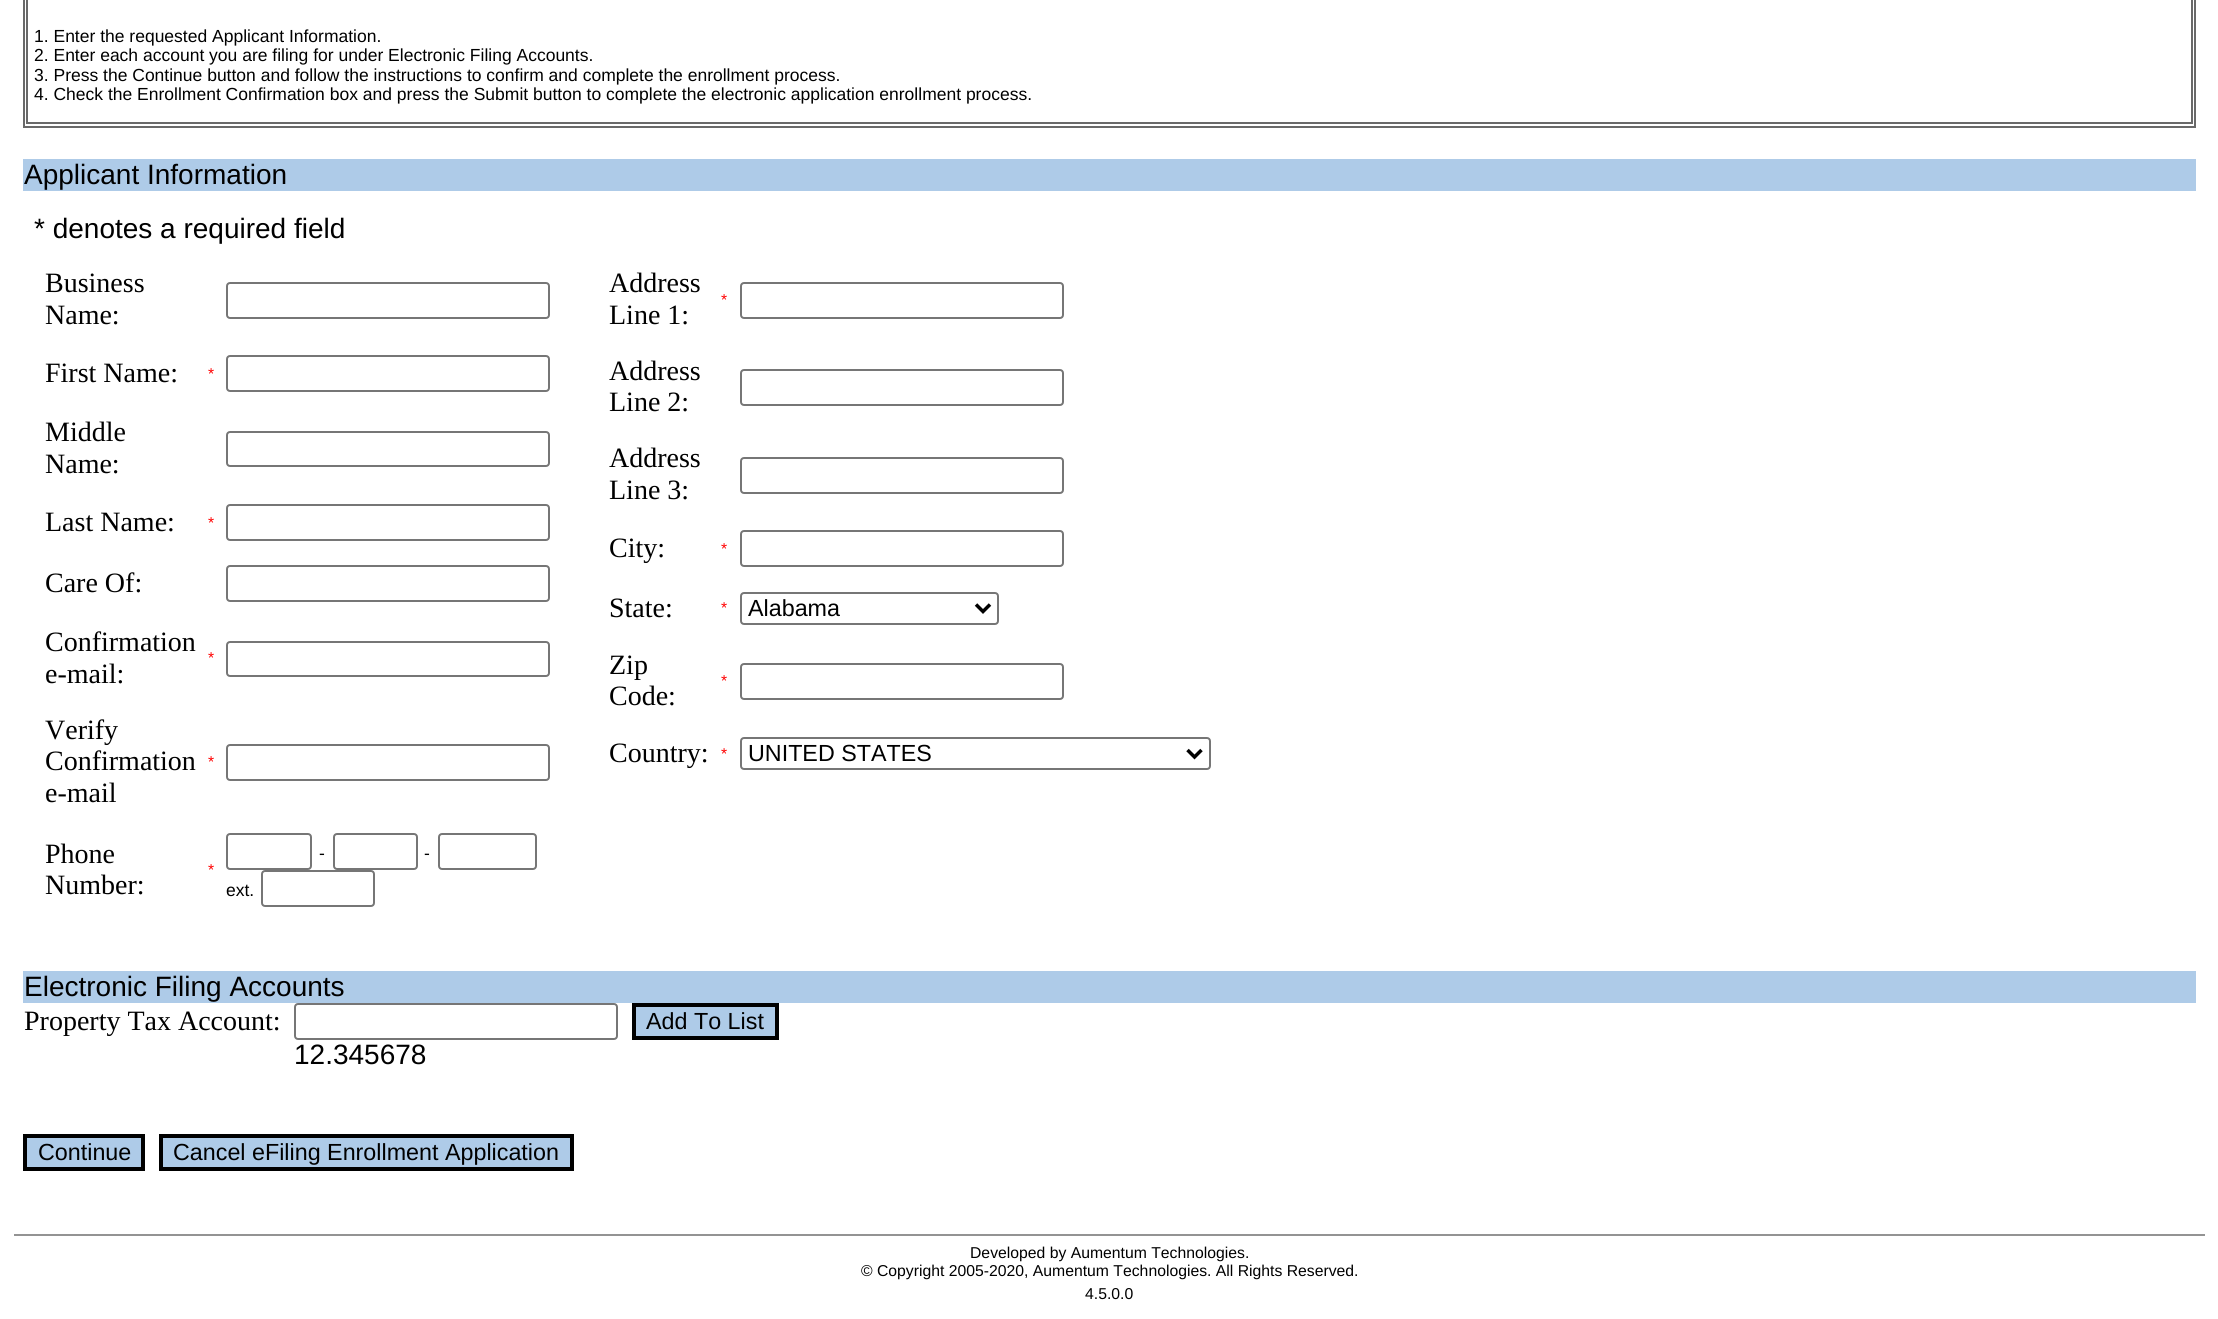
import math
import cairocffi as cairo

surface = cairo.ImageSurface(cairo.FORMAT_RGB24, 2218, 1319)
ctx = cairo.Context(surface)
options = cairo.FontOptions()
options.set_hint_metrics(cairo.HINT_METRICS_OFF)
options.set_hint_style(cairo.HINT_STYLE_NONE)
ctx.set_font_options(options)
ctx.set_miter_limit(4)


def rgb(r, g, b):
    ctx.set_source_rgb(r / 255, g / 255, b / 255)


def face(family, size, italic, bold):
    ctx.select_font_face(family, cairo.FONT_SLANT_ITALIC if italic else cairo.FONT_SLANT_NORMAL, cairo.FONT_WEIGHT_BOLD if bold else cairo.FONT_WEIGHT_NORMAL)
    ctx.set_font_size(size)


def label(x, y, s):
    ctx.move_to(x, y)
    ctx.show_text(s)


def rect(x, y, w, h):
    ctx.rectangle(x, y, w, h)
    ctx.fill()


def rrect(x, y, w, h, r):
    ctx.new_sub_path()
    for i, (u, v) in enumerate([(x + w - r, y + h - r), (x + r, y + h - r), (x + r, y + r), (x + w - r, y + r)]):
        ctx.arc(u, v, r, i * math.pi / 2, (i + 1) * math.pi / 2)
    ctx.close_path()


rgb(255, 255, 255)
ctx.paint()
ctx.rectangle(24, -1, 2171, 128)
rgb(105, 105, 105)
ctx.stroke()
ctx.rectangle(27, -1, 2165, 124)
ctx.stroke()
face('Liberation Sans', 17.5, 0, 0)
rgb(0, 0, 0)
label(34, 42, '1. Enter the requested Applicant Information.')
label(34, 61, '2. Enter each account you are filing for under Electronic Filing Accounts.')
label(34, 81, '3. Press the Continue button and follow the instructions to confirm and complete the enrollment process.')
label(34, 100, '4. Check the Enrollment Confirmation box and press the Submit button to complete the electronic application enrollment process.')
rgb(174, 203, 232)
rect(23, 159, 2173, 32)
face('Liberation Sans', 28, 0, 0)
rgb(0, 0, 0)
label(24, 184, 'Applicant Information')
label(34, 238, '* denotes a required field')
face('Liberation Serif', 28, 0, 0)
label(45, 292, 'Business')
label(45, 324, 'Name:')
rrect(227, 283, 322, 35, 3)
rgb(118, 118, 118)
ctx.stroke()
rgb(0, 0, 0)
label(45, 382, 'First Name:')
face('Liberation Sans', 15.75, 0, 0)
rgb(255, 0, 0)
label(208, 379, '*')
rrect(227, 356, 322, 35, 3)
rgb(118, 118, 118)
ctx.stroke()
face('Liberation Serif', 28, 0, 0)
rgb(0, 0, 0)
label(45, 441, 'Middle')
label(45, 473, 'Name:')
rrect(227, 432, 322, 34, 3)
rgb(118, 118, 118)
ctx.stroke()
rgb(0, 0, 0)
label(45, 531, 'Last Name:')
face('Liberation Sans', 15.75, 0, 0)
rgb(255, 0, 0)
label(208, 528, '*')
rrect(227, 505, 322, 35, 3)
rgb(118, 118, 118)
ctx.stroke()
face('Liberation Serif', 28, 0, 0)
rgb(0, 0, 0)
label(45, 592, 'Care Of:')
rrect(227, 566, 322, 35, 3)
rgb(118, 118, 118)
ctx.stroke()
rgb(0, 0, 0)
label(45, 651, 'Confirmation')
label(45, 683, 'e-mail:')
face('Liberation Sans', 15.75, 0, 0)
rgb(255, 0, 0)
label(208, 663, '*')
rrect(227, 642, 322, 34, 3)
rgb(118, 118, 118)
ctx.stroke()
face('Liberation Serif', 28, 0, 0)
rgb(0, 0, 0)
label(45, 739, 'Verify')
label(45, 770, 'Confirmation')
label(45, 802, 'e-mail')
face('Liberation Sans', 15.75, 0, 0)
rgb(255, 0, 0)
label(208, 767, '*')
rrect(227, 745, 322, 35, 3)
rgb(118, 118, 118)
ctx.stroke()
face('Liberation Serif', 28, 0, 0)
rgb(0, 0, 0)
label(45, 863, 'Phone')
label(45, 894, 'Number:')
face('Liberation Sans', 15.75, 0, 0)
rgb(255, 0, 0)
label(208, 875, '*')
rrect(227, 834, 84, 35, 3)
rgb(118, 118, 118)
ctx.stroke()
face('Liberation Sans', 17.5, 0, 0)
rgb(0, 0, 0)
label(319, 859, '-')
rrect(334, 834, 83, 35, 3)
rgb(118, 118, 118)
ctx.stroke()
rgb(0, 0, 0)
label(424, 859, '-')
rrect(439, 834, 97, 35, 3)
rgb(118, 118, 118)
ctx.stroke()
rgb(0, 0, 0)
label(226, 896, 'ext.')
rrect(262, 871, 112, 35, 3)
rgb(118, 118, 118)
ctx.stroke()
face('Liberation Serif', 28, 0, 0)
rgb(0, 0, 0)
label(609, 292, 'Address')
label(609, 324, 'Line 1:')
face('Liberation Sans', 15.75, 0, 0)
rgb(255, 0, 0)
label(721, 305, '*')
rrect(741, 283, 322, 35, 3)
rgb(118, 118, 118)
ctx.stroke()
face('Liberation Serif', 28, 0, 0)
rgb(0, 0, 0)
label(609, 380, 'Address')
label(609, 411, 'Line 2:')
rrect(741, 370, 322, 35, 3)
rgb(118, 118, 118)
ctx.stroke()
rgb(0, 0, 0)
label(609, 467, 'Address')
label(609, 499, 'Line 3:')
rrect(741, 458, 322, 35, 3)
rgb(118, 118, 118)
ctx.stroke()
rgb(0, 0, 0)
label(609, 557, 'City:')
face('Liberation Sans', 15.75, 0, 0)
rgb(255, 0, 0)
label(721, 554, '*')
rrect(741, 531, 322, 35, 3)
rgb(118, 118, 118)
ctx.stroke()
face('Liberation Serif', 28, 0, 0)
rgb(0, 0, 0)
label(609, 617, 'State:')
face('Liberation Sans', 15.75, 0, 0)
rgb(255, 0, 0)
label(721, 613, '*')
rrect(741, 593, 257, 31, 3)
rgb(118, 118, 118)
ctx.stroke()
ctx.new_path()
ctx.move_to(976, 604.5)
ctx.line_to(983, 611.5)
ctx.line_to(990, 604.5)
rgb(0, 0, 0)
ctx.set_line_width(3.5)
ctx.stroke()
face('Liberation Sans', 23.3, 0, 0)
label(748, 616, 'Alabama')
face('Liberation Serif', 28, 0, 0)
label(609, 674, 'Zip')
label(609, 705, 'Code:')
face('Liberation Sans', 15.75, 0, 0)
rgb(255, 0, 0)
label(721, 686, '*')
rrect(741, 664, 322, 35, 3)
rgb(118, 118, 118)
ctx.set_line_width(2)
ctx.stroke()
face('Liberation Serif', 28, 0, 0)
rgb(0, 0, 0)
label(609, 762, 'Country:')
face('Liberation Sans', 15.75, 0, 0)
rgb(255, 0, 0)
label(721, 759, '*')
rrect(741, 738, 469, 31, 3)
rgb(118, 118, 118)
ctx.stroke()
ctx.new_path()
ctx.move_to(1187.5, 750)
ctx.line_to(1194.5, 757)
ctx.line_to(1201.5, 750)
rgb(0, 0, 0)
ctx.set_line_width(3.5)
ctx.stroke()
face('Liberation Sans', 23.3, 0, 0)
label(748, 761, 'UNITED STATES')
rgb(174, 203, 232)
rect(23, 971, 2173, 32)
face('Liberation Sans', 28, 0, 0)
rgb(0, 0, 0)
label(24, 996, 'Electronic Filing Accounts')
face('Liberation Serif', 28, 0, 0)
label(24, 1030, 'Property Tax Account:')
rrect(295, 1004, 322, 35, 3)
rgb(118, 118, 118)
ctx.set_line_width(2)
ctx.stroke()
rgb(174, 203, 232)
ctx.rectangle(634, 1005, 143, 33)
ctx.fill_preserve()
rgb(0, 0, 0)
ctx.set_line_width(4)
ctx.stroke()
face('Liberation Sans', 23.3, 0, 0)
label(646, 1029, 'Add To List')
face('Liberation Sans', 28, 0, 0)
label(294, 1064, '12.345678')
rgb(174, 203, 232)
ctx.rectangle(25, 1136, 118, 33)
ctx.fill_preserve()
rgb(0, 0, 0)
ctx.stroke()
face('Liberation Sans', 23.3, 0, 0)
label(38, 1160, 'Continue')
rgb(174, 203, 232)
ctx.rectangle(161, 1136, 411, 33)
ctx.fill_preserve()
rgb(0, 0, 0)
ctx.stroke()
label(173, 1160, 'Cancel eFiling Enrollment Application')
rgb(147, 147, 147)
rect(14, 1234, 2191, 2)
face('Liberation Sans', 15.75, 0, 0)
rgb(0, 0, 0)
label(970, 1258, 'Developed by Aumentum Technologies.')
label(861, 1276, '© Copyright 2005-2020, Aumentum Technologies. All Rights Reserved.')
label(1085, 1299, '4.5.0.0')
surface.write_to_png('render.png')
